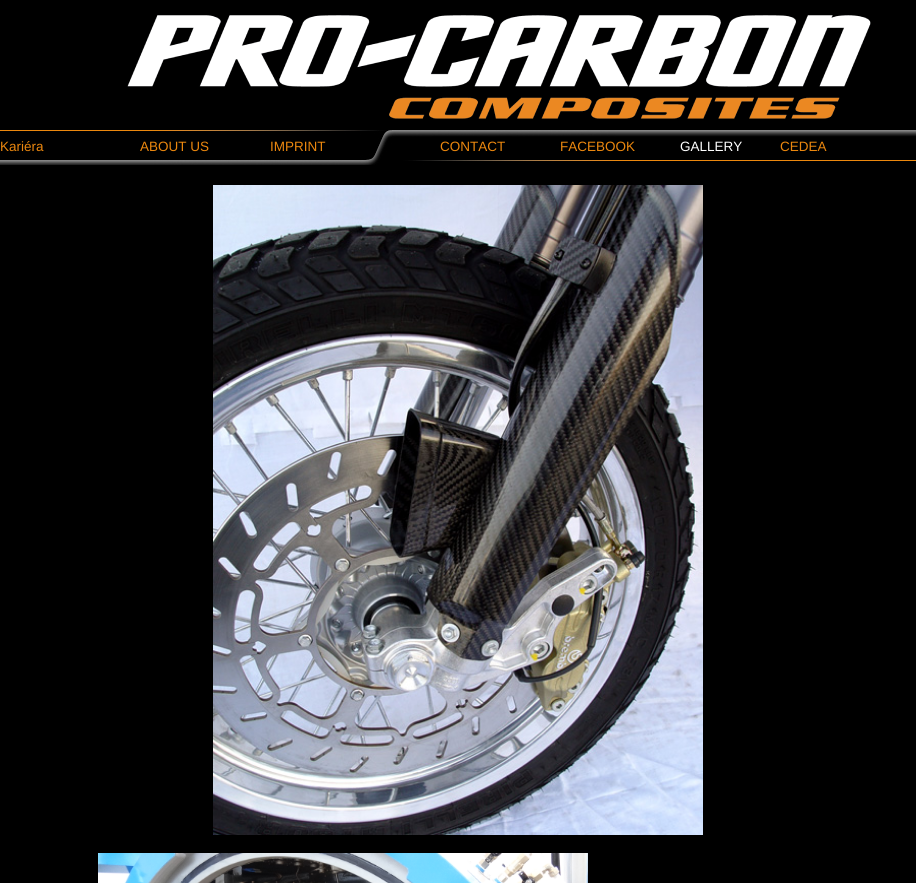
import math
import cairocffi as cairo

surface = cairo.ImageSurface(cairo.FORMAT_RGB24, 916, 883)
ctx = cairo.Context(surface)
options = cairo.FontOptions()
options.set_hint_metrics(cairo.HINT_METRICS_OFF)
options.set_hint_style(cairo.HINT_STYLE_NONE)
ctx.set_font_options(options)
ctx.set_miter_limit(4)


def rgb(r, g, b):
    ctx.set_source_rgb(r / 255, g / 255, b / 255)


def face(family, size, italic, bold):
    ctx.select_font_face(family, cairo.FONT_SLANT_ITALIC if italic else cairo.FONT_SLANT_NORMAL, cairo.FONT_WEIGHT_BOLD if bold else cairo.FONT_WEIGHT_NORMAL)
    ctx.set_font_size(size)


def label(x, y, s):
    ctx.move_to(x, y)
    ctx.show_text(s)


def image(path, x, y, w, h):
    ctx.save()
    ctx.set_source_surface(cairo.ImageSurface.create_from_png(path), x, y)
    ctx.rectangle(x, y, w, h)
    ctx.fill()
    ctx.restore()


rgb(0, 0, 0)
ctx.paint()
image('image0.png', 127, 15, 744, 104)
image('image1.png', 0, 130, 152, 35)
image('image2.png', 616, 130, 300, 31)
image('image3.png', 152, 130, 464, 35)
face('Liberation Sans', 13.5, 0, 0)
rgb(235, 135, 14)
label(0, 151, 'Kariéra')
label(140, 151, 'ABOUT US')
label(270, 151, 'IMPRINT')
label(440, 151, 'CONTACT')
label(560, 151, 'FACEBOOK')
rgb(255, 255, 255)
label(680, 151, 'GALLERY')
rgb(235, 135, 14)
label(780, 151, 'CEDEA')
image('image4.png', 213, 185, 490, 650)
image('image5.png', 98, 853, 490, 30)
surface.write_to_png('render.png')
